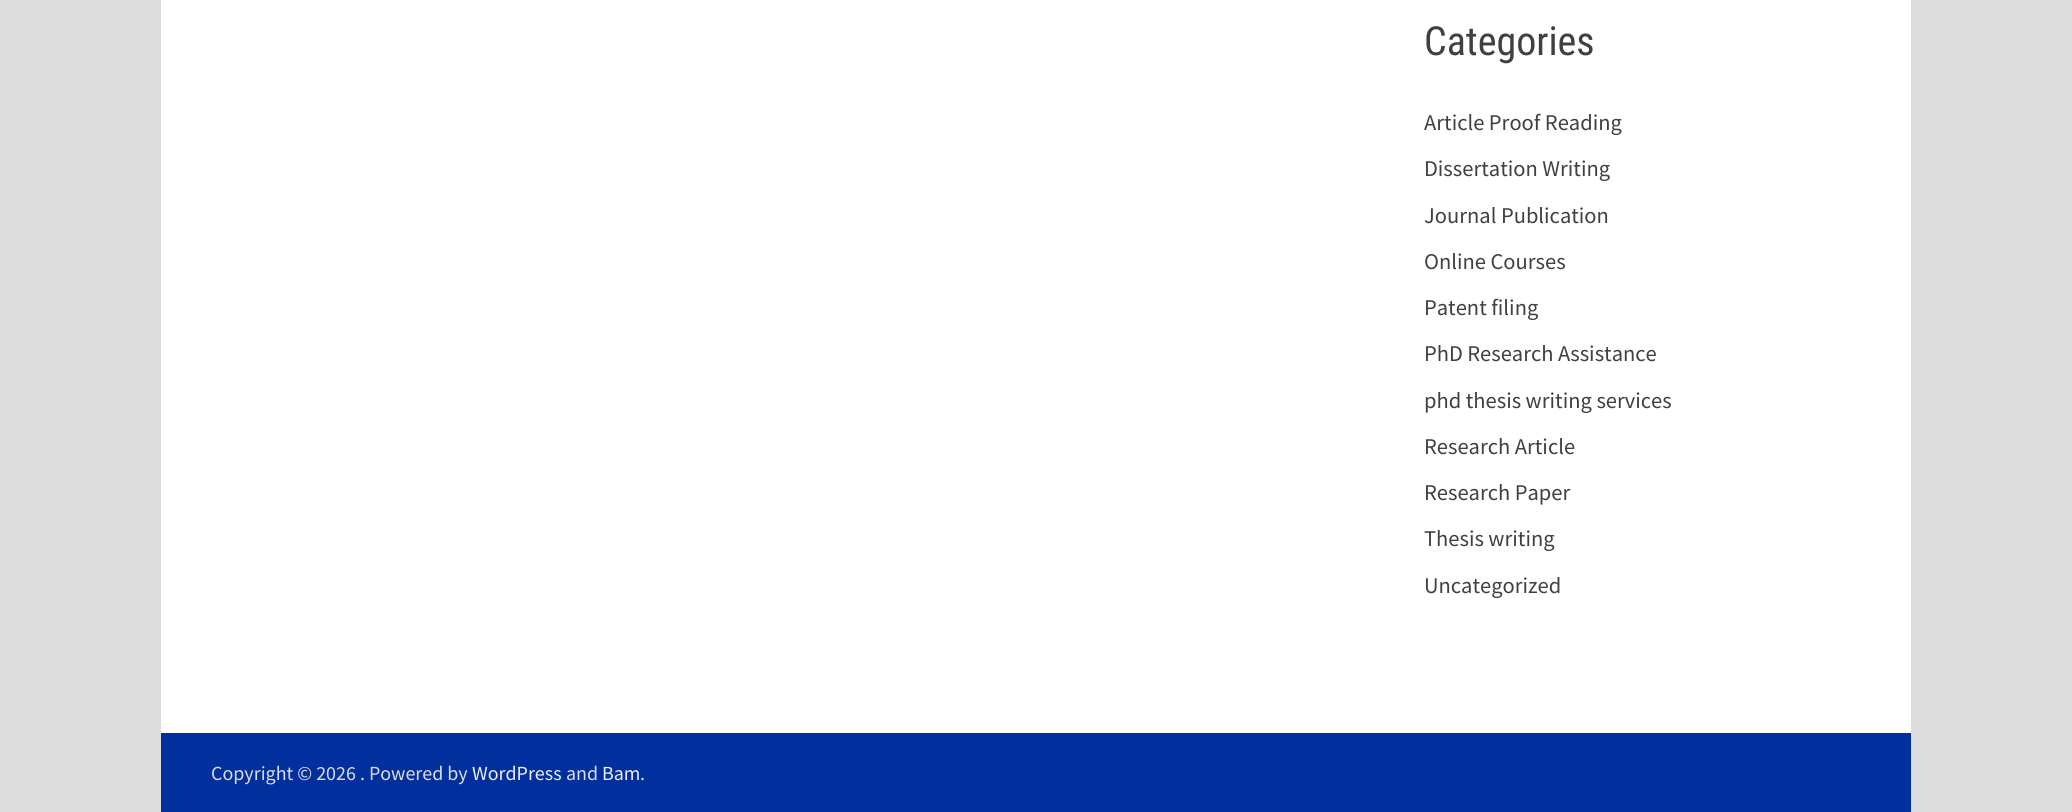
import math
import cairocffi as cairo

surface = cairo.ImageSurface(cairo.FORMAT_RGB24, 2072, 812)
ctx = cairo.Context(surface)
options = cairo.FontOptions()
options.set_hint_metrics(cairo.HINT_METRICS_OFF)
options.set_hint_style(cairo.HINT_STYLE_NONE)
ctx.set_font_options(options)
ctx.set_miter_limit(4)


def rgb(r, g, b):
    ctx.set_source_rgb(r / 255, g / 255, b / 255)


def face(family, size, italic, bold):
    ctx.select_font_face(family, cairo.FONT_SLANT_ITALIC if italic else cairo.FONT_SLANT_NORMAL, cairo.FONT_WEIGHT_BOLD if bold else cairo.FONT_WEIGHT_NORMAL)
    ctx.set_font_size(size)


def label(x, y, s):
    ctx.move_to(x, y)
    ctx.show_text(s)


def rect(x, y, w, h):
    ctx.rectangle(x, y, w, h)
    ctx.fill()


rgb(221, 221, 221)
ctx.paint()
rgb(255, 255, 255)
rect(161, 0, 1750, 733)
face('Roboto Condensed', 40, 0, 0)
rgb(64, 64, 64)
label(1424, 55, 'Categories')
face('Source Sans Pro', 22.5, 0, 0)
label(1424, 130, 'Article Proof Reading')
label(1424, 176, 'Dissertation Writing')
label(1424, 223, 'Journal Publication')
label(1424, 269, 'Online Courses')
label(1424, 315, 'Patent filing')
label(1424, 361, 'PhD Research Assistance')
label(1424, 408, 'phd thesis writing services')
label(1424, 454, 'Research Article')
label(1424, 500, 'Research Paper')
label(1424, 546, 'Thesis writing')
label(1424, 593, 'Uncategorized')
rgb(1, 48, 158)
rect(161, 733, 1750, 79)
face('Source Sans Pro', 20, 0, 0)
rgb(221, 221, 221)
label(211, 780, 'Copyright © 2026 . Powered by')
rgb(238, 238, 238)
label(472, 780, 'WordPress')
rgb(221, 221, 221)
label(566, 780, 'and')
rgb(238, 238, 238)
label(602, 780, 'Bam')
rgb(221, 221, 221)
label(640, 780, '.')
surface.write_to_png('render.png')
